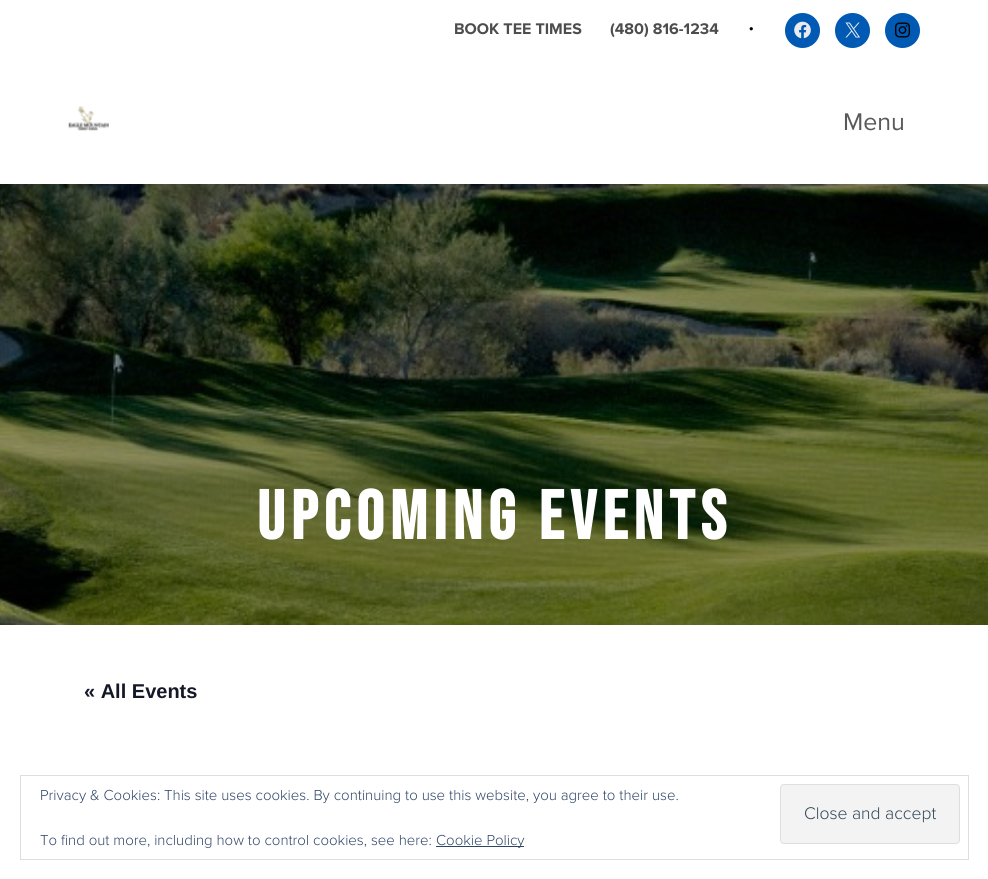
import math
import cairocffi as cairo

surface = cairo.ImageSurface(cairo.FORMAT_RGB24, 988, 879)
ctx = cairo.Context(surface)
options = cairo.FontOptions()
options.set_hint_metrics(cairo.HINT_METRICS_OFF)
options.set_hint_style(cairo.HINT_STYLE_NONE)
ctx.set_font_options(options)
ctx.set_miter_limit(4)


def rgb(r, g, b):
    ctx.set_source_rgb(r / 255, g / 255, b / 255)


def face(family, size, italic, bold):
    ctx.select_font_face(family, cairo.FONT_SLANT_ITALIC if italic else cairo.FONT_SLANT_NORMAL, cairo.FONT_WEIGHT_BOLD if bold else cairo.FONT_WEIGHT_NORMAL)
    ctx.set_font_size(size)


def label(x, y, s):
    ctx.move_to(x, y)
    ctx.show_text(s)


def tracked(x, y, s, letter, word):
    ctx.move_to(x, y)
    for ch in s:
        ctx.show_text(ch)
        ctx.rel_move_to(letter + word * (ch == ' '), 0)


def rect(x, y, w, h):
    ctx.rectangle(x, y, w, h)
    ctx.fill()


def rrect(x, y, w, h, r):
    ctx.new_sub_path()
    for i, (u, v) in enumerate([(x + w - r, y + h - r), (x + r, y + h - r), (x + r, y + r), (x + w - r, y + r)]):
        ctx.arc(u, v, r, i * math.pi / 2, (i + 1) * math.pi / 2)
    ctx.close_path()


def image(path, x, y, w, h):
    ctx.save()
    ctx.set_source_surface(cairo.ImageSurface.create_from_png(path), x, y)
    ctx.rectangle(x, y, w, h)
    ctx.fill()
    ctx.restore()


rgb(255, 255, 255)
ctx.paint()
face('Proxima Nova', 16, 0, 1)
rgb(77, 77, 77)
label(454, 34, 'BOOK TEE TIMES')
label(610, 34, '(480) 816-1234')
image('image0.png', 749, 27, 4, 4)
rgb(0, 89, 179)
ctx.arc(802.5, 30.5, 17.5, 0, 2 * math.pi)
ctx.fill()
image('image1.png', 794, 21, 17, 18)
ctx.arc(852.5, 30.5, 17.5, 0, 2 * math.pi)
ctx.fill()
image('image2.png', 845, 22, 15, 16)
ctx.arc(902.5, 30.5, 17.5, 0, 2 * math.pi)
ctx.fill()
image('image3.png', 895, 22, 15, 16)
image('image4.png', 68, 106, 41, 25)
face('Proxima Nova', 25, 0, 0)
rgb(89, 89, 89)
label(843, 130, 'Menu')
image('image5.png', 0, 184, 988, 441)
face('Bebas Neue', 68.75, 0, 1)
rgb(255, 255, 255)
tracked(257, 539, 'UPCOMING EVENTS', 6.25, 0)
face('Liberation Sans', 20, 0, 1)
rgb(20, 24, 39)
label(84, 698, '« All Events')
ctx.rectangle(20.5, 775.5, 948, 84)
rgb(222, 222, 222)
ctx.set_line_width(1)
ctx.stroke()
face('Proxima Nova Light', 15, 0, 0)
rgb(46, 68, 103)
label(40, 800, 'Privacy & Cookies: This site uses cookies. By continuing to use this website, you agree to their use.')
rgb(243, 243, 243)
rrect(780.5, 784.5, 179, 59, 3.5)
ctx.fill_preserve()
rgb(222, 222, 222)
ctx.stroke()
face('Proxima Nova Light', 17.5, 0, 0)
rgb(46, 68, 83)
label(804, 819, 'Close and accept')
face('Proxima Nova Light', 15, 0, 0)
rgb(46, 68, 103)
label(40, 845, 'To find out more, including how to control cookies, see here:')
rect(436, 846, 88, 1)
label(436, 845, 'Cookie Policy')
surface.write_to_png('render.png')
